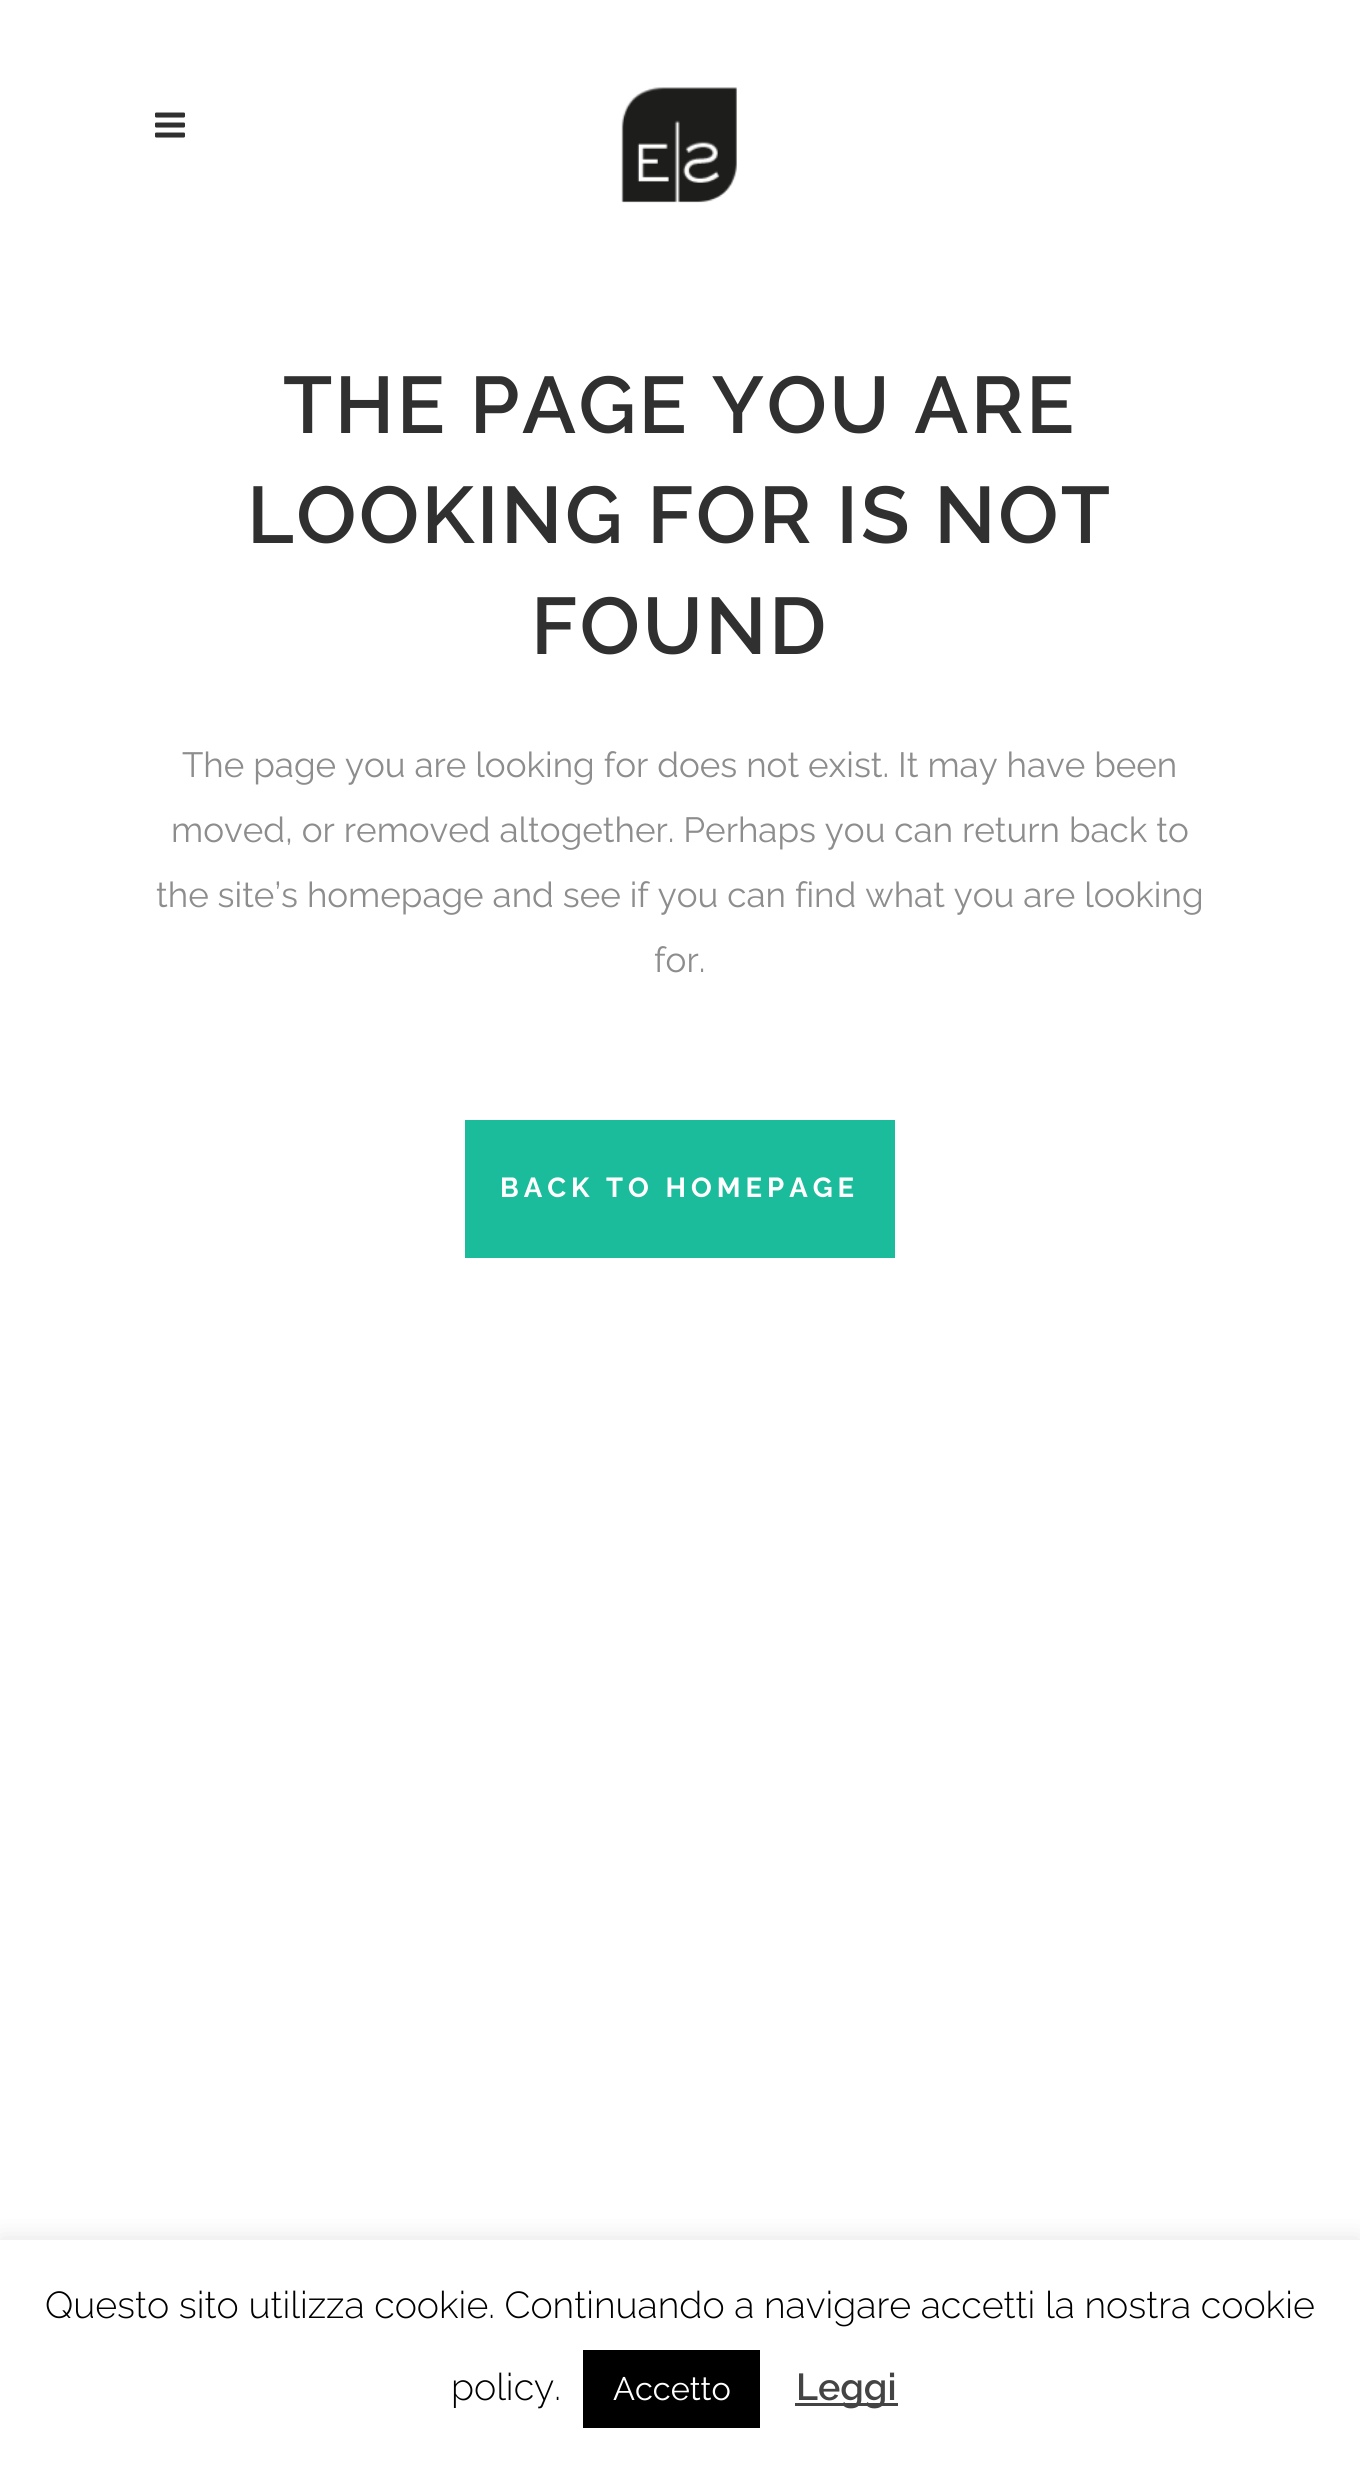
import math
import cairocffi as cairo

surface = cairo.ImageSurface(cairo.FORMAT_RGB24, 1360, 2469)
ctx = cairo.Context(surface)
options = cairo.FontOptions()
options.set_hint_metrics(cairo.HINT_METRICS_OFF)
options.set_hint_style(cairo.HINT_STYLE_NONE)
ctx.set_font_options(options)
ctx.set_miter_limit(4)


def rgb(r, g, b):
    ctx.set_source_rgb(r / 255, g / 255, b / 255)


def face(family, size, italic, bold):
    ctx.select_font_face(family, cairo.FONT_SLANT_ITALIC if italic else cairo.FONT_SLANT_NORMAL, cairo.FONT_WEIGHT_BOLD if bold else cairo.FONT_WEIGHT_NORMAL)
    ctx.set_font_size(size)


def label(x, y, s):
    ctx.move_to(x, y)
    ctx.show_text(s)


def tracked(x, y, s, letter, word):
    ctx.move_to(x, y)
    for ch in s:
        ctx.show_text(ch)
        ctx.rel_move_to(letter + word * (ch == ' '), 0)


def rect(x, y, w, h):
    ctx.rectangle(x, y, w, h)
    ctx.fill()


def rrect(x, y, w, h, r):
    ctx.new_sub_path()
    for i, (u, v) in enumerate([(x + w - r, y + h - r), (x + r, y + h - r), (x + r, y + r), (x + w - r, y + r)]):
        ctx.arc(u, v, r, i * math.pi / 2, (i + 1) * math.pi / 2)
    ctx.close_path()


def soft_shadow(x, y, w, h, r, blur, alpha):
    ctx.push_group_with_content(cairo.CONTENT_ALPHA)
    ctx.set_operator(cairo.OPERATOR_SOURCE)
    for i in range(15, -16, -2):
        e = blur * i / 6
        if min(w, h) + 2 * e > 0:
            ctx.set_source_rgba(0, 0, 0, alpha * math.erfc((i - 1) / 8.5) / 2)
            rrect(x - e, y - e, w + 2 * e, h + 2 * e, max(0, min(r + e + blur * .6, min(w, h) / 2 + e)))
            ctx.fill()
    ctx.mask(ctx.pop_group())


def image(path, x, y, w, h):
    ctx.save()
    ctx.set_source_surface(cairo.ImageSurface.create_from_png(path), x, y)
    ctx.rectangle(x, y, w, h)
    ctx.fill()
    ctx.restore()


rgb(255, 255, 255)
ctx.paint()
image('image0.png', 155, 112, 30, 26)
image('image1.png', 621, 87, 116, 116)
face('Raleway SemiBold', 80, 0, 0)
rgb(48, 48, 48)
tracked(283, 433, 'THE PAGE YOU ARE', 2.5, 0)
tracked(247, 543, 'LOOKING FOR IS NOT', 2.5, 0)
tracked(531, 654, 'FOUND', 2.5, 0)
face('Raleway', 35, 0, 0)
rgb(141, 141, 141)
label(182, 777, 'The page you are looking for does not exist. It may have been')
label(171, 842, 'moved, or removed altogether. Perhaps you can return back to')
label(156, 907, 'the site’s homepage and see if you can find what you are looking')
label(654, 972, 'for.')
rgb(26, 188, 156)
rect(465, 1120, 430, 138)
face('Raleway', 27.5, 0, 1)
rgb(255, 255, 255)
tracked(500, 1197, 'BACK TO HOMEPAGE', 5, 0)
ctx.save()
ctx.rectangle(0, 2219, 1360, 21)
ctx.clip()
rgb(172, 171, 171)
soft_shadow(0, 2238, 1360, 230, 0, 12.5, 0.3)
ctx.restore()
face('Raleway Light', 37.5, 0, 0)
rgb(0, 0, 0)
label(45, 2318, 'Questo sito utilizza cookie. Continuando a navigare accetti la nostra cookie')
label(451, 2400, 'policy.')
rect(583, 2350, 177, 78)
face('Raleway', 32.5, 0, 0)
rgb(255, 255, 255)
label(613, 2400, 'Accetto')
rgb(68, 68, 68)
rect(795, 2403, 103, 3)
face('Raleway SemiBold', 37.5, 0, 0)
label(796, 2400, 'Leggi')
surface.write_to_png('render.png')
